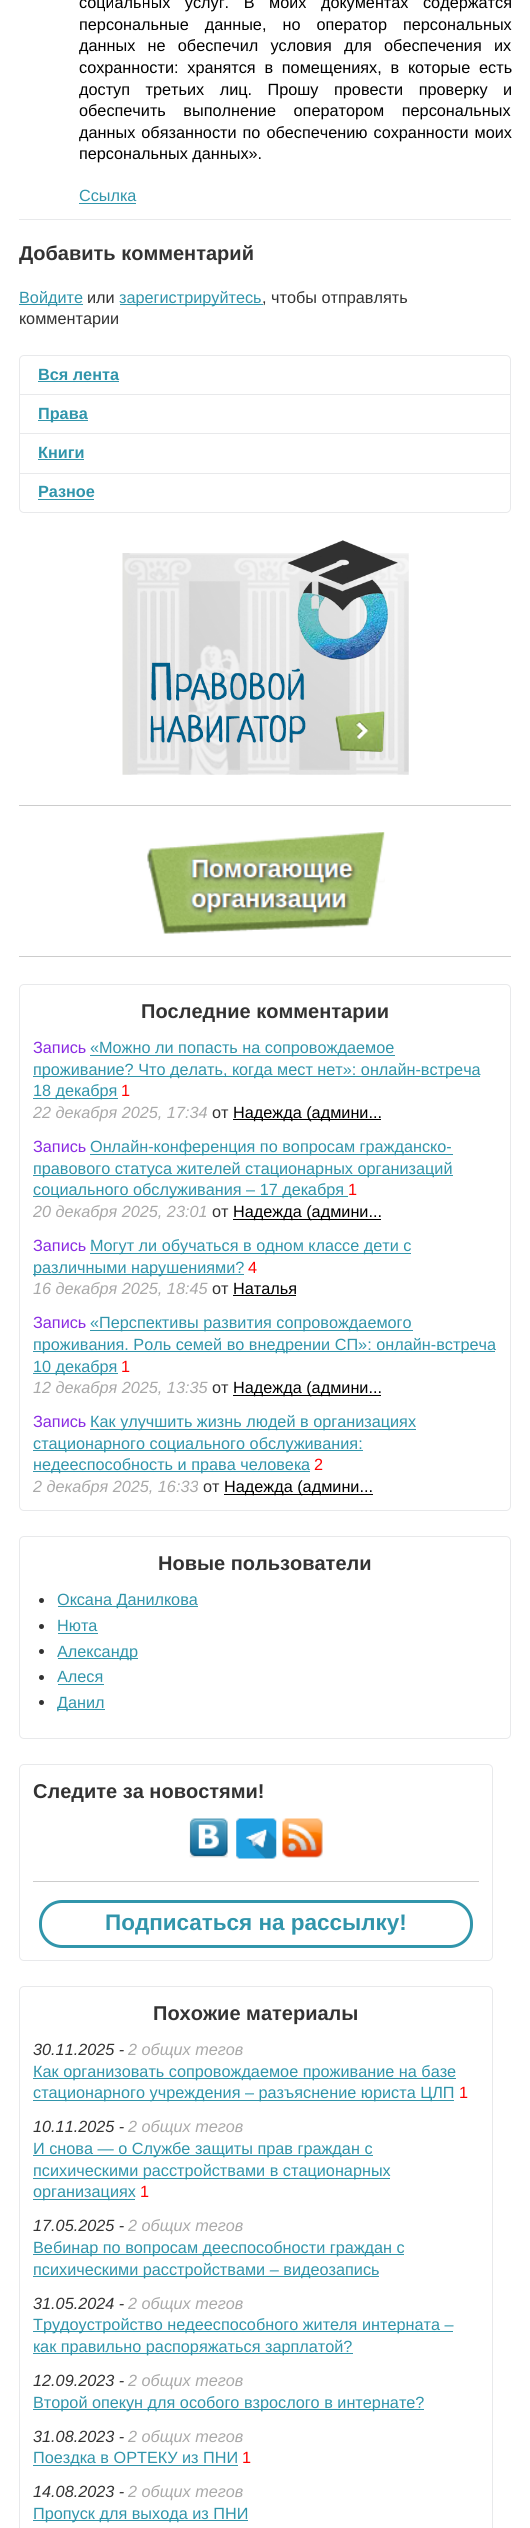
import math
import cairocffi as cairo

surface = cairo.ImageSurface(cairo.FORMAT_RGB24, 530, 2528)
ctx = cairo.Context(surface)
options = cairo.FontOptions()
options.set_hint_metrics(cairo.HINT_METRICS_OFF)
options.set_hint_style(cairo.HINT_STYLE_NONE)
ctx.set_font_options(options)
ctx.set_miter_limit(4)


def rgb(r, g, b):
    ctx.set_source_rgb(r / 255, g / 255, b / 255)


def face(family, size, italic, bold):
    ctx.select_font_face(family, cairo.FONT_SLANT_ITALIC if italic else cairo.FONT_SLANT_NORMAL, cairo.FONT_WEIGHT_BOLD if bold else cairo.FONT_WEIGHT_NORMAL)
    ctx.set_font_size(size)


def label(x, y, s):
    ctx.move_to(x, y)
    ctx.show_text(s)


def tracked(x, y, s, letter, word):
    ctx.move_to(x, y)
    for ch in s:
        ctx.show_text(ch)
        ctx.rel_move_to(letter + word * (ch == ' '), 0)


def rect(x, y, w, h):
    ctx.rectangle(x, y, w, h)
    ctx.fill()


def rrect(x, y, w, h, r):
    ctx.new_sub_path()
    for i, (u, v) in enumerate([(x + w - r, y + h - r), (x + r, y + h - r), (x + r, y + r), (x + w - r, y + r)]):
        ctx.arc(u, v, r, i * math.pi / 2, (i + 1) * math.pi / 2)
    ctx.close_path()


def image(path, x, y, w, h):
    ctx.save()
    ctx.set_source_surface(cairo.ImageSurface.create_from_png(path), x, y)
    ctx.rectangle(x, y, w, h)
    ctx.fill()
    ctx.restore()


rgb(255, 255, 255)
ctx.paint()
rgb(232, 233, 235)
rect(19, 219, 492, 1)
face('Liberation Sans', 16.25, 0, 0)
rgb(0, 0, 0)
tracked(79, 8, 'социальных услуг. В моих документах содержатся', 0, 10)
tracked(79, 30, 'персональные данные, но оператор персональных', 0, 11.5)
tracked(79, 51, 'данных не обеспечил условия для обеспечения их', 0, 7.75)
tracked(79, 73, 'сохранности: хранятся в помещениях, в которые есть', 0, 4.25)
tracked(79, 95, 'доступ третьих лиц. Прошу провести проверку и', 0, 11)
tracked(79, 116, 'обеспечить выполнение оператором персональных', 0, 13)
tracked(79, 138, 'данных обязанности по обеспечению сохранности моих', 0, 1.5)
label(79, 159, 'персональных данных».')
rgb(49, 149, 171)
label(79, 201, 'Ссылка')
rect(79, 203, 57, 1)
face('Liberation Sans', 20, 0, 1)
rgb(51, 51, 51)
label(19, 260, 'Добавить комментарий')
rgb(49, 149, 171)
rect(19, 304, 64, 1)
face('Liberation Sans', 16.25, 0, 0)
label(19, 303, 'Войдите')
rgb(51, 51, 51)
label(87, 303, 'или')
rgb(49, 149, 171)
rect(120, 304, 143, 1)
label(119, 303, 'зарегистрируйтесь')
rgb(51, 51, 51)
label(262, 303, ', чтобы отправлять')
label(19, 324, 'комментарии')
rrect(19.5, 355.5, 491, 157, 4.5)
rgb(232, 233, 235)
ctx.set_line_width(1)
ctx.stroke()
rect(20, 394, 490, 1)
face('Liberation Sans', 16.25, 0, 1)
rgb(49, 149, 171)
label(38, 380, 'Вся лента')
rect(38, 381, 81, 1)
rgb(232, 233, 235)
rect(20, 433, 490, 1)
rgb(49, 149, 171)
rect(38, 420, 50, 1)
label(38, 419, 'Права')
rgb(232, 233, 235)
rect(20, 473, 490, 1)
rgb(49, 149, 171)
label(38, 458, 'Книги')
rect(38, 459, 46, 1)
label(38, 497, 'Разное')
rect(38, 499, 56, 1)
image('image0.png', 122, 540, 287, 235)
rgb(204, 204, 204)
rect(19, 805, 492, 1)
image('image1.png', 147, 832, 238, 102)
rect(19, 956, 492, 1)
rrect(19.5, 984.5, 491, 526, 4.5)
rgb(232, 233, 235)
ctx.stroke()
face('Liberation Sans', 20, 0, 1)
rgb(51, 51, 51)
label(141, 1018, 'Последние комментарии')
face('Liberation Sans', 16.25, 0, 0)
rgb(138, 43, 226)
label(33, 1053, 'Запись')
rgb(49, 149, 171)
rect(90, 1055, 305, 1)
label(90, 1053, '«Можно ли попасть на сопровождаемое')
rect(33, 1076, 447, 1)
label(33, 1075, 'проживание? Что делать, когда мест нет»: онлайн-встреча')
rect(33, 1098, 85, 1)
label(33, 1096, '18 декабря')
rgb(255, 0, 0)
label(121, 1096, '1')
face('Liberation Sans', 16.25, 1, 0)
rgb(169, 169, 169)
label(33, 1118, '22 декабря 2025, 17:34')
face('Liberation Sans', 16.25, 0, 0)
rgb(51, 51, 51)
label(212, 1118, 'от')
rgb(0, 0, 0)
rect(233, 1119, 148, 1)
label(233, 1118, 'Надежда (админи...')
rgb(138, 43, 226)
label(33, 1152, 'Запись')
rgb(49, 149, 171)
rect(90, 1154, 363, 1)
label(90, 1152, 'Онлайн-конференция по вопросам гражданско-')
rect(33, 1175, 420, 1)
label(33, 1174, 'правового статуса жителей стационарных организаций')
rect(33, 1196, 315, 1)
label(33, 1195, 'социального обслуживания – 17 декабря')
rgb(255, 0, 0)
label(348, 1195, '1')
face('Liberation Sans', 16.25, 1, 0)
rgb(169, 169, 169)
label(33, 1217, '20 декабря 2025, 23:01')
face('Liberation Sans', 16.25, 0, 0)
rgb(51, 51, 51)
label(212, 1217, 'от')
rgb(0, 0, 0)
rect(233, 1219, 148, 1)
label(233, 1217, 'Надежда (админи...')
rgb(138, 43, 226)
label(33, 1251, 'Запись')
rgb(49, 149, 171)
rect(90, 1253, 321, 1)
label(90, 1251, 'Могут ли обучаться в одном классе дети с')
rect(33, 1274, 211, 1)
label(33, 1273, 'различными нарушениями?')
rgb(255, 0, 0)
label(248, 1273, '4')
face('Liberation Sans', 16.25, 1, 0)
rgb(169, 169, 169)
label(33, 1294, '16 декабря 2025, 18:45')
face('Liberation Sans', 16.25, 0, 0)
rgb(51, 51, 51)
label(212, 1294, 'от')
rgb(0, 0, 0)
label(233, 1294, 'Наталья')
rect(233, 1295, 63, 1)
rgb(138, 43, 226)
label(33, 1328, 'Запись')
rgb(49, 149, 171)
rect(90, 1330, 323, 1)
label(90, 1328, '«Перспективы развития сопровождаемого')
rect(33, 1351, 462, 1)
label(33, 1350, 'проживания. Роль семей во внедрении СП»: онлайн-встреча')
rect(33, 1373, 85, 1)
label(33, 1372, '10 декабря')
rgb(255, 0, 0)
label(121, 1372, '1')
face('Liberation Sans', 16.25, 1, 0)
rgb(169, 169, 169)
label(33, 1393, '12 декабря 2025, 13:35')
face('Liberation Sans', 16.25, 0, 0)
rgb(51, 51, 51)
label(212, 1393, 'от')
rgb(0, 0, 0)
rect(233, 1395, 148, 1)
label(233, 1393, 'Надежда (админи...')
rgb(138, 43, 226)
label(33, 1427, 'Запись')
rgb(49, 149, 171)
rect(90, 1429, 326, 1)
label(90, 1427, 'Как улучшить жизнь людей в организациях')
rect(33, 1450, 330, 1)
label(33, 1449, 'стационарного социального обслуживания:')
rect(33, 1471, 277, 1)
label(33, 1470, 'недееспособность и права человека')
rgb(255, 0, 0)
label(314, 1470, '2')
face('Liberation Sans', 16.25, 1, 0)
rgb(169, 169, 169)
label(33, 1492, '2 декабря 2025, 16:33')
face('Liberation Sans', 16.25, 0, 0)
rgb(51, 51, 51)
label(203, 1492, 'от')
rgb(0, 0, 0)
rect(224, 1494, 149, 1)
label(224, 1492, 'Надежда (админи...')
rrect(19.5, 1536.5, 491, 202, 4.5)
rgb(232, 233, 235)
ctx.stroke()
face('Liberation Sans', 20, 0, 1)
rgb(51, 51, 51)
label(158, 1570, 'Новые пользователи')
ctx.new_path()
ctx.arc(41.5, 1600.5, 2.5, 0, 2 * math.pi)
ctx.fill()
rgb(49, 149, 171)
rect(58, 1606, 140, 1)
face('Liberation Sans', 16.25, 0, 0)
label(57, 1605, 'Оксана Данилкова')
rgb(51, 51, 51)
ctx.new_path()
ctx.arc(41.5, 1626.5, 2.5, 0, 2 * math.pi)
ctx.fill()
rgb(49, 149, 171)
label(57, 1631, 'Нюта')
rect(58, 1633, 40, 1)
rgb(51, 51, 51)
ctx.new_path()
ctx.arc(41.5, 1651.5, 2.5, 0, 2 * math.pi)
ctx.fill()
rgb(49, 149, 171)
rect(58, 1658, 80, 1)
label(57, 1657, 'Александр')
rgb(51, 51, 51)
ctx.new_path()
ctx.arc(41.5, 1677.5, 2.5, 0, 2 * math.pi)
ctx.fill()
rgb(49, 149, 171)
label(57, 1682, 'Алеся')
rect(58, 1684, 46, 1)
rgb(51, 51, 51)
ctx.new_path()
ctx.arc(41.5, 1702.5, 2.5, 0, 2 * math.pi)
ctx.fill()
rgb(49, 149, 171)
rect(58, 1709, 47, 1)
label(57, 1708, 'Данил')
rrect(19.5, 1764.5, 473, 196, 4.5)
rgb(232, 233, 235)
ctx.stroke()
face('Liberation Sans', 20, 0, 1)
rgb(51, 51, 51)
label(33, 1798, 'Следите за новостями!')
image('image2.png', 189, 1818, 39, 40)
image('image3.png', 236, 1818, 41, 41)
image('image4.png', 282, 1818, 41, 40)
rgb(204, 204, 204)
rect(33, 1881, 446, 1)
rrect(40.5, 1901.5, 431, 45, 21.5)
rgb(49, 149, 171)
ctx.set_line_width(3)
ctx.stroke()
face('Liberation Sans', 22.5, 0, 1)
label(105, 1930, 'Подписаться на рассылку!')
rrect(19.5, 1986.5, 473, 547, 4.5)
rgb(232, 233, 235)
ctx.set_line_width(1)
ctx.stroke()
face('Liberation Sans', 20, 0, 1)
rgb(51, 51, 51)
label(153, 2020, 'Похожие материалы')
face('Liberation Sans', 16.25, 1, 0)
label(33, 2055, '30.11.2025 -')
rgb(169, 169, 169)
label(128, 2055, '2 общих тегов')
rgb(49, 149, 171)
rect(33, 2078, 423, 1)
face('Liberation Sans', 16.25, 0, 0)
label(33, 2077, 'Как организовать сопровождаемое проживание на базе')
rect(33, 2100, 421, 1)
label(33, 2098, 'стационарного учреждения – разъяснение юриста ЦЛП')
rgb(255, 0, 0)
label(459, 2098, '1')
face('Liberation Sans', 16.25, 1, 0)
rgb(51, 51, 51)
label(33, 2132, '10.11.2025 -')
rgb(169, 169, 169)
label(128, 2132, '2 общих тегов')
rgb(49, 149, 171)
rect(33, 2155, 340, 1)
face('Liberation Sans', 16.25, 0, 0)
label(33, 2154, 'И снова — о Службе защиты прав граждан с')
rect(33, 2178, 357, 1)
label(33, 2176, 'психическими расстройствами в стационарных')
rect(33, 2199, 102, 1)
label(33, 2197, 'организациях')
rgb(255, 0, 0)
label(140, 2197, '1')
face('Liberation Sans', 16.25, 1, 0)
rgb(51, 51, 51)
label(33, 2231, '17.05.2025 -')
rgb(169, 169, 169)
label(128, 2231, '2 общих тегов')
rgb(49, 149, 171)
rect(33, 2254, 371, 1)
face('Liberation Sans', 16.25, 0, 0)
label(33, 2253, 'Вебинар по вопросам дееспособности граждан с')
rect(33, 2276, 346, 1)
label(33, 2275, 'психическими расстройствами – видеозапись')
face('Liberation Sans', 16.25, 1, 0)
rgb(51, 51, 51)
label(33, 2309, '31.05.2024 -')
rgb(169, 169, 169)
label(128, 2309, '2 общих тегов')
rgb(49, 149, 171)
rect(33, 2331, 420, 1)
face('Liberation Sans', 16.25, 0, 0)
label(33, 2330, 'Трудоустройство недееспособного жителя интерната –')
rect(33, 2353, 320, 1)
label(33, 2352, 'как правильно распоряжаться зарплатой?')
face('Liberation Sans', 16.25, 1, 0)
rgb(51, 51, 51)
label(33, 2386, '12.09.2023 -')
rgb(169, 169, 169)
label(128, 2386, '2 общих тегов')
rgb(49, 149, 171)
rect(33, 2409, 391, 1)
face('Liberation Sans', 16.25, 0, 0)
label(33, 2408, 'Второй опекун для особого взрослого в интернате?')
face('Liberation Sans', 16.25, 1, 0)
rgb(51, 51, 51)
label(33, 2442, '31.08.2023 -')
rgb(169, 169, 169)
label(128, 2442, '2 общих тегов')
rgb(49, 149, 171)
rect(33, 2465, 205, 1)
face('Liberation Sans', 16.25, 0, 0)
label(33, 2463, 'Поездка в ОРТЕКУ из ПНИ')
rgb(255, 0, 0)
label(242, 2463, '1')
face('Liberation Sans', 16.25, 1, 0)
rgb(51, 51, 51)
label(33, 2497, '14.08.2023 -')
rgb(169, 169, 169)
label(128, 2497, '2 общих тегов')
rgb(49, 149, 171)
rect(33, 2520, 215, 1)
face('Liberation Sans', 16.25, 0, 0)
label(33, 2519, 'Пропуск для выхода из ПНИ')
surface.write_to_png('render.png')
